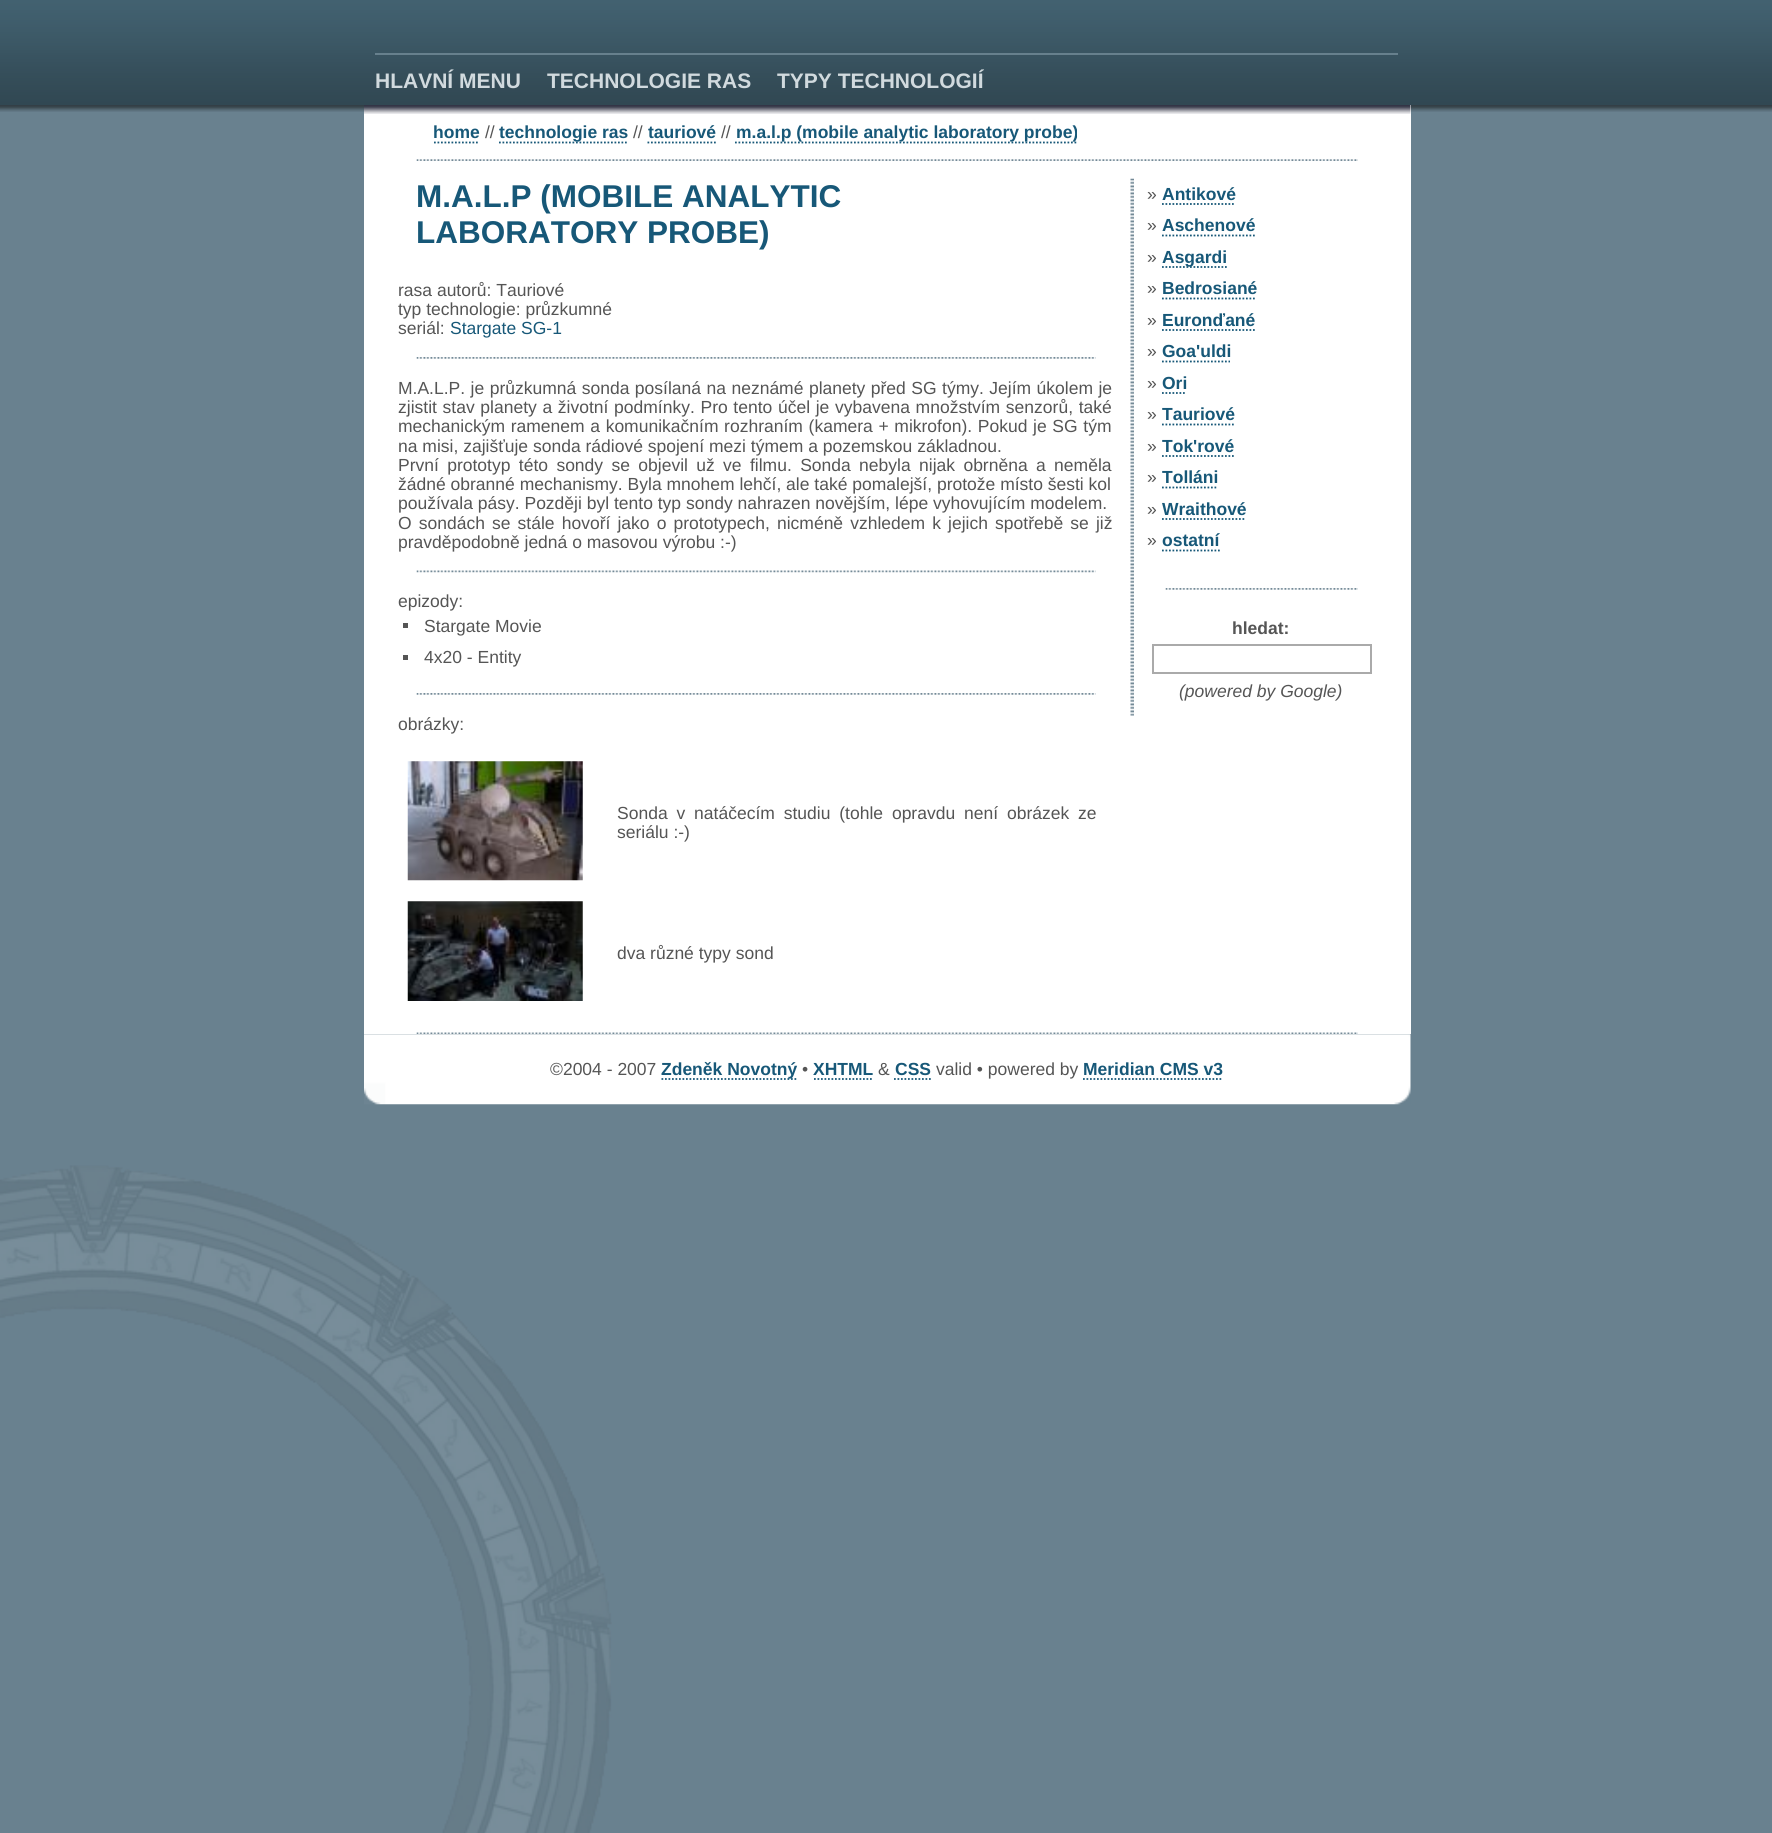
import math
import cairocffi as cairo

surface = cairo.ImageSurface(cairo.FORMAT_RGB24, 1772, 1833)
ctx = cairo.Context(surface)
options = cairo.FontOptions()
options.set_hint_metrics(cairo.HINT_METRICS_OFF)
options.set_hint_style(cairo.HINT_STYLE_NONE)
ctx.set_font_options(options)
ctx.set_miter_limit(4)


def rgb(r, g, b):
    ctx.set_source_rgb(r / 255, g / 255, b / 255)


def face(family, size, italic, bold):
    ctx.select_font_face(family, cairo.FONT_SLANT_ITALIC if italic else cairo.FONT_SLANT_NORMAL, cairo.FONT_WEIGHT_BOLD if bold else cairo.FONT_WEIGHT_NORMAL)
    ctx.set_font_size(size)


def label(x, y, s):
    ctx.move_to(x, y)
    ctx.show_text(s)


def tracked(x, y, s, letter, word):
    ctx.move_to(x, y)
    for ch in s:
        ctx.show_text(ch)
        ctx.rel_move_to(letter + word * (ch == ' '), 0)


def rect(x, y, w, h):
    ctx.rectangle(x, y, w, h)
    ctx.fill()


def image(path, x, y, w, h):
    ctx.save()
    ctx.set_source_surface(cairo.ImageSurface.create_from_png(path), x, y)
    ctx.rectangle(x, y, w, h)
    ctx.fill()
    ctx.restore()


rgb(105, 129, 143)
ctx.paint()
image('image0.png', 0, 1165, 612, 668)
image('image1.png', 0, 0, 1772, 105)
rgb(103, 128, 141)
rect(375, 53, 1023, 2)
face('Liberation Sans', 21, 0, 1)
rgb(209, 218, 222)
label(375, 88, 'HLAVNÍ MENU')
label(547, 88, 'TECHNOLOGIE RAS')
label(777, 88, 'TYPY TECHNOLOGIÍ')
image('image2.png', 0, 105, 1772, 7)
rgb(255, 255, 255)
rect(364, 105, 1047, 929)
image('image3.png', 364, 105, 1047, 9)
face('Liberation Sans', 17.5, 0, 1)
rgb(23, 88, 120)
label(433, 138, 'home')
ctx.new_path()
ctx.move_to(434, 142.5)
ctx.line_to(479.5, 142.5)
ctx.set_line_width(1.8)
ctx.set_dash([1.75, 1.75])
ctx.stroke()
face('Liberation Sans', 17.5, 0, 0)
rgb(85, 85, 85)
label(485, 138, '//')
ctx.new_path()
ctx.move_to(499, 142.5)
ctx.line_to(628, 142.5)
rgb(23, 88, 120)
ctx.stroke()
face('Liberation Sans', 17.5, 0, 1)
label(499, 138, 'technologie ras')
face('Liberation Sans', 17.5, 0, 0)
rgb(85, 85, 85)
label(633, 138, '//')
face('Liberation Sans', 17.5, 0, 1)
rgb(23, 88, 120)
label(648, 138, 'tauriové')
ctx.new_path()
ctx.move_to(647.5, 142.5)
ctx.line_to(716, 142.5)
ctx.stroke()
face('Liberation Sans', 17.5, 0, 0)
rgb(85, 85, 85)
label(721, 138, '//')
ctx.new_path()
ctx.move_to(735, 142.5)
ctx.line_to(1078, 142.5)
rgb(23, 88, 120)
ctx.stroke()
face('Liberation Sans', 17.5, 0, 1)
label(736, 138, 'm.a.l.p (mobile analytic laboratory probe)')
image('image4.png', 416, 159, 942, 2)
face('Liberation Sans', 31.5, 0, 1)
label(416, 207, 'M.A.L.P (MOBILE ANALYTIC')
label(416, 243, 'LABORATORY PROBE)')
face('Liberation Sans', 17.5, 0, 0)
rgb(85, 85, 85)
label(398, 296, 'rasa autorů: Tauriové')
label(398, 315, 'typ technologie: průzkumné')
label(398, 334, 'seriál:')
rgb(23, 88, 120)
label(450, 334, 'Stargate SG-1')
image('image5.png', 416, 357, 680, 2)
rgb(85, 85, 85)
tracked(398, 394, 'M.A.L.P. je průzkumná sonda posílaná na neznámé planety před SG týmy. Jejím úkolem je', 0, 0.6)
tracked(398, 413, 'zjistit stav planety a životní podmínky. Pro tento účel je vybavena množstvím senzorů, také', 0, 0.8)
tracked(398, 432, 'mechanickým ramenem a komunikačním rozhraním (kamera + mikrofon). Pokud je SG tým', 0, 0.8)
label(398, 452, 'na misi, zajišťuje sonda rádiové spojení mezi týmem a pozemskou základnou.')
tracked(398, 471, 'První prototyp této sondy se objevil už ve filmu. Sonda nebyla nijak obrněna a neměla', 0, 3.5)
label(398, 490, 'žádné obranné mechanismy. Byla mnohem lehčí, ale také pomalejší, protože místo šesti kol')
label(398, 509, 'používala pásy. Později byl tento typ sondy nahrazen novějším, lépe vyhovujícím modelem.')
tracked(398, 529, 'O sondách se stále hovoří jako o prototypech, nicméně vzhledem k jejich spotřebě se již', 0, 2.25)
label(398, 548, 'pravděpodobně jedná o masovou výrobu :-)')
image('image6.png', 416, 570, 680, 3)
label(398, 607, 'epizody:')
rect(403, 623, 5, 5)
label(424, 632, 'Stargate Movie')
rect(403, 655, 5, 5)
label(424, 663, '4x20 - Entity')
image('image7.png', 416, 693, 680, 2)
label(398, 730, 'obrázky:')
image('image8.png', 407, 761, 176, 120)
tracked(617, 819, 'Sonda v natáčecím studiu (tohle opravdu není obrázek ze', 0, 4)
label(617, 838, 'seriálu :-)')
image('image9.png', 407, 901, 176, 100)
label(617, 959, 'dva různé typy sond')
image('image10.png', 1130, 178, 4, 538)
label(1147, 200, '»')
face('Liberation Sans', 17.5, 0, 1)
rgb(23, 88, 120)
label(1162, 200, 'Antikové')
ctx.new_path()
ctx.move_to(1162, 204)
ctx.line_to(1235.5, 204)
ctx.stroke()
face('Liberation Sans', 17.5, 0, 0)
rgb(85, 85, 85)
label(1147, 231, '»')
face('Liberation Sans', 17.5, 0, 1)
rgb(23, 88, 120)
label(1162, 231, 'Aschenové')
ctx.new_path()
ctx.move_to(1162, 235.5)
ctx.line_to(1255, 235.5)
ctx.stroke()
face('Liberation Sans', 17.5, 0, 0)
rgb(85, 85, 85)
label(1147, 263, '»')
ctx.new_path()
ctx.move_to(1162, 267)
ctx.line_to(1227, 267)
rgb(23, 88, 120)
ctx.stroke()
face('Liberation Sans', 17.5, 0, 1)
label(1162, 263, 'Asgardi')
face('Liberation Sans', 17.5, 0, 0)
rgb(85, 85, 85)
label(1147, 294, '»')
face('Liberation Sans', 17.5, 0, 1)
rgb(23, 88, 120)
label(1162, 294, 'Bedrosiané')
ctx.new_path()
ctx.move_to(1162, 298.5)
ctx.line_to(1256.5, 298.5)
ctx.stroke()
face('Liberation Sans', 17.5, 0, 0)
rgb(85, 85, 85)
label(1147, 326, '»')
face('Liberation Sans', 17.5, 0, 1)
rgb(23, 88, 120)
label(1162, 326, 'Euronďané')
ctx.new_path()
ctx.move_to(1162, 330)
ctx.line_to(1255, 330)
ctx.stroke()
face('Liberation Sans', 17.5, 0, 0)
rgb(85, 85, 85)
label(1147, 357, '»')
face('Liberation Sans', 17.5, 0, 1)
rgb(23, 88, 120)
label(1162, 357, 'Goa\'uldi')
ctx.new_path()
ctx.move_to(1162, 361.5)
ctx.line_to(1230, 361.5)
ctx.stroke()
face('Liberation Sans', 17.5, 0, 0)
rgb(85, 85, 85)
label(1147, 389, '»')
face('Liberation Sans', 17.5, 0, 1)
rgb(23, 88, 120)
label(1162, 389, 'Ori')
ctx.new_path()
ctx.move_to(1162, 393)
ctx.line_to(1186.5, 393)
ctx.stroke()
face('Liberation Sans', 17.5, 0, 0)
rgb(85, 85, 85)
label(1147, 420, '»')
face('Liberation Sans', 17.5, 0, 1)
rgb(23, 88, 120)
label(1162, 420, 'Tauriové')
ctx.new_path()
ctx.move_to(1162, 424.5)
ctx.line_to(1235.5, 424.5)
ctx.stroke()
face('Liberation Sans', 17.5, 0, 0)
rgb(85, 85, 85)
label(1147, 452, '»')
face('Liberation Sans', 17.5, 0, 1)
rgb(23, 88, 120)
label(1162, 452, 'Tok\'rové')
ctx.new_path()
ctx.move_to(1162, 456)
ctx.line_to(1234, 456)
ctx.stroke()
face('Liberation Sans', 17.5, 0, 0)
rgb(85, 85, 85)
label(1147, 483, '»')
face('Liberation Sans', 17.5, 0, 1)
rgb(23, 88, 120)
label(1162, 483, 'Tolláni')
ctx.new_path()
ctx.move_to(1162, 487.5)
ctx.line_to(1218, 487.5)
ctx.stroke()
face('Liberation Sans', 17.5, 0, 0)
rgb(85, 85, 85)
label(1147, 515, '»')
face('Liberation Sans', 17.5, 0, 1)
rgb(23, 88, 120)
label(1162, 515, 'Wraithové')
ctx.new_path()
ctx.move_to(1162, 519)
ctx.line_to(1246, 519)
ctx.stroke()
face('Liberation Sans', 17.5, 0, 0)
rgb(85, 85, 85)
label(1147, 546, '»')
face('Liberation Sans', 17.5, 0, 1)
rgb(23, 88, 120)
label(1162, 546, 'ostatní')
ctx.new_path()
ctx.move_to(1162, 550.5)
ctx.line_to(1220, 550.5)
ctx.stroke()
image('image11.png', 1165, 588, 193, 2)
rgb(85, 85, 85)
label(1232, 634, 'hledat:')
ctx.rectangle(1153, 645, 218, 28)
rgb(170, 170, 170)
ctx.set_line_width(2)
ctx.set_dash([])
ctx.stroke()
face('Liberation Sans', 17.5, 1, 0)
rgb(85, 85, 85)
label(1179, 697, '(powered by Google)')
image('image12.png', 416, 1032, 942, 2)
image('image13.png', 364, 1034, 1047, 71)
face('Liberation Sans', 17.5, 0, 0)
label(550, 1075, '©2004 - 2007')
ctx.new_path()
ctx.move_to(661.5, 1079)
ctx.line_to(798, 1079)
rgb(23, 88, 120)
ctx.set_line_width(1.8)
ctx.set_dash([1.75, 1.75])
ctx.stroke()
face('Liberation Sans', 17.5, 0, 1)
label(661, 1075, 'Zdeněk Novotný')
face('Liberation Sans', 17.5, 0, 0)
rgb(85, 85, 85)
label(802, 1075, '•')
face('Liberation Sans', 17.5, 0, 1)
rgb(23, 88, 120)
label(813, 1075, 'XHTML')
ctx.new_path()
ctx.move_to(814, 1079)
ctx.line_to(873, 1079)
ctx.stroke()
face('Liberation Sans', 17.5, 0, 0)
rgb(85, 85, 85)
label(878, 1075, '&')
face('Liberation Sans', 17.5, 0, 1)
rgb(23, 88, 120)
label(895, 1075, 'CSS')
ctx.new_path()
ctx.move_to(894, 1079)
ctx.line_to(931, 1079)
ctx.stroke()
face('Liberation Sans', 17.5, 0, 0)
rgb(85, 85, 85)
label(936, 1075, 'valid • powered by')
face('Liberation Sans', 17.5, 0, 1)
rgb(23, 88, 120)
label(1083, 1075, 'Meridian CMS v3')
ctx.new_path()
ctx.move_to(1083, 1079)
ctx.line_to(1223, 1079)
ctx.stroke()
surface.write_to_png('render.png')
